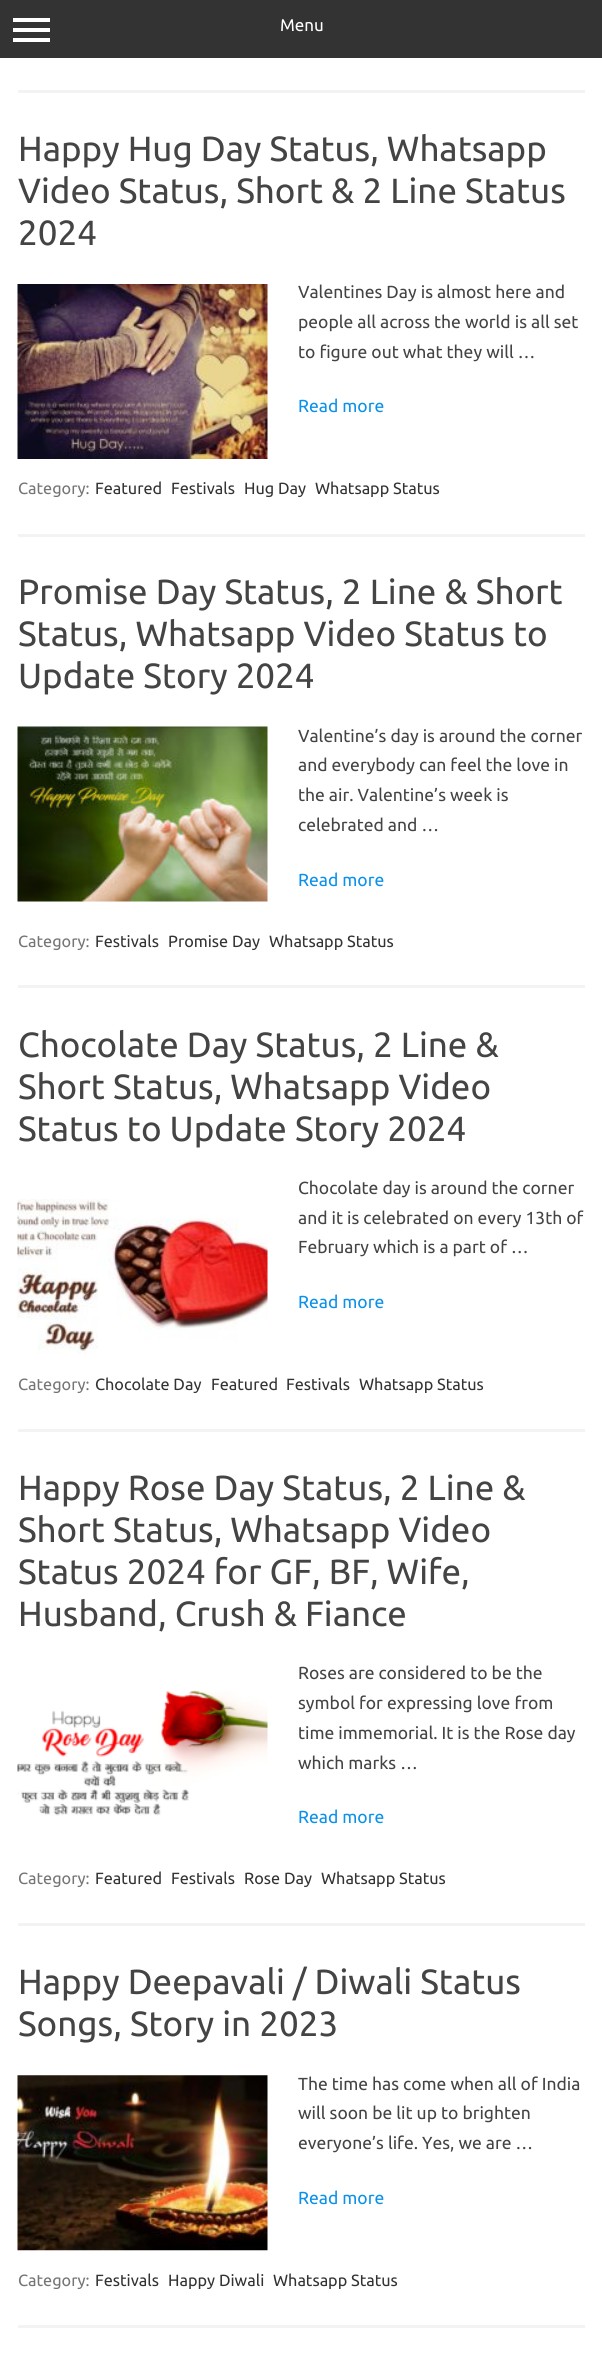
import math
import cairocffi as cairo

surface = cairo.ImageSurface(cairo.FORMAT_RGB24, 602, 2355)
ctx = cairo.Context(surface)
options = cairo.FontOptions()
options.set_hint_metrics(cairo.HINT_METRICS_OFF)
options.set_hint_style(cairo.HINT_STYLE_NONE)
ctx.set_font_options(options)
ctx.set_miter_limit(4)


def rgb(r, g, b):
    ctx.set_source_rgb(r / 255, g / 255, b / 255)


def face(family, size, italic, bold):
    ctx.select_font_face(family, cairo.FONT_SLANT_ITALIC if italic else cairo.FONT_SLANT_NORMAL, cairo.FONT_WEIGHT_BOLD if bold else cairo.FONT_WEIGHT_NORMAL)
    ctx.set_font_size(size)


def label(x, y, s):
    ctx.move_to(x, y)
    ctx.show_text(s)


def rect(x, y, w, h):
    ctx.rectangle(x, y, w, h)
    ctx.fill()


def image(path, x, y, w, h):
    ctx.save()
    ctx.set_source_surface(cairo.ImageSurface.create_from_png(path), x, y)
    ctx.rectangle(x, y, w, h)
    ctx.fill()
    ctx.restore()


rgb(255, 255, 255)
ctx.paint()
rgb(51, 51, 51)
rect(0, 0, 602, 58)
rgb(255, 255, 255)
rect(13, 18, 37, 4)
rect(13, 28, 37, 4)
rect(13, 38, 37, 4)
face('Ubuntu', 17, 0, 0)
label(280, 31, 'Menu')
rgb(243, 243, 243)
rect(18, 90, 567, 3)
rect(18, 534, 567, 3)
face('Ubuntu', 35, 0, 0)
rgb(68, 68, 68)
label(18, 161, 'Happy Hug Day Status, Whatsapp')
label(18, 203, 'Video Status, Short & 2 Line Status')
label(18, 245, '2024')
image('image0.png', 17, 284, 251, 175)
face('Ubuntu', 17.5, 0, 0)
label(298, 298, 'Valentines Day is almost here and')
label(298, 328, 'people all across the world is all set')
label(298, 358, 'to figure out what they will …')
rgb(11, 145, 234)
label(298, 412, 'Read more')
face('Ubuntu', 16.25, 0, 0)
rgb(117, 117, 117)
label(18, 494, 'Category:')
rgb(51, 51, 51)
label(95, 494, 'Featured')
label(171, 494, 'Festivals')
label(244, 494, 'Hug Day')
label(315, 494, 'Whatsapp Status')
rgb(243, 243, 243)
rect(18, 985, 567, 3)
face('Ubuntu', 35, 0, 0)
rgb(68, 68, 68)
label(18, 604, 'Promise Day Status, 2 Line & Short')
label(18, 646, 'Status, Whatsapp Video Status to')
label(18, 688, 'Update Story 2024')
image('image1.png', 17, 726, 251, 176)
face('Ubuntu', 17.5, 0, 0)
label(298, 742, 'Valentine’s day is around the corner')
label(298, 771, 'and everybody can feel the love in')
label(298, 801, 'the air. Valentine’s week is')
label(298, 831, 'celebrated and …')
rgb(11, 145, 234)
label(298, 886, 'Read more')
face('Ubuntu', 16.25, 0, 0)
rgb(117, 117, 117)
label(18, 947, 'Category:')
rgb(51, 51, 51)
label(95, 947, 'Festivals')
label(168, 947, 'Promise Day')
label(269, 947, 'Whatsapp Status')
rgb(243, 243, 243)
rect(18, 1429, 567, 3)
face('Ubuntu', 35, 0, 0)
rgb(68, 68, 68)
label(18, 1057, 'Chocolate Day Status, 2 Line &')
label(18, 1099, 'Short Status, Whatsapp Video')
label(18, 1141, 'Status to Update Story 2024')
image('image2.png', 17, 1199, 251, 155)
face('Ubuntu', 17.5, 0, 0)
label(298, 1194, 'Chocolate day is around the corner')
label(298, 1224, 'and it is celebrated on every 13th of')
label(298, 1253, 'February which is a part of …')
rgb(11, 145, 234)
label(298, 1308, 'Read more')
face('Ubuntu', 16.25, 0, 0)
rgb(117, 117, 117)
label(18, 1390, 'Category:')
rgb(51, 51, 51)
label(95, 1390, 'Chocolate Day')
label(211, 1390, 'Featured')
label(286, 1390, 'Festivals')
label(359, 1390, 'Whatsapp Status')
rgb(243, 243, 243)
rect(18, 1923, 567, 3)
face('Ubuntu', 35, 0, 0)
rgb(68, 68, 68)
label(18, 1500, 'Happy Rose Day Status, 2 Line &')
label(18, 1542, 'Short Status, Whatsapp Video')
label(18, 1584, 'Status 2024 for GF, BF, Wife,')
label(18, 1626, 'Husband, Crush & Fiance')
image('image3.png', 17, 1690, 251, 126)
face('Ubuntu', 17.5, 0, 0)
label(298, 1679, 'Roses are considered to be the')
label(298, 1709, 'symbol for expressing love from')
label(298, 1739, 'time immemorial. It is the Rose day')
label(298, 1769, 'which marks …')
rgb(11, 145, 234)
label(298, 1823, 'Read more')
face('Ubuntu', 16.25, 0, 0)
rgb(117, 117, 117)
label(18, 1884, 'Category:')
rgb(51, 51, 51)
label(95, 1884, 'Featured')
label(171, 1884, 'Festivals')
label(244, 1884, 'Rose Day')
label(321, 1884, 'Whatsapp Status')
rgb(243, 243, 243)
rect(18, 2325, 567, 3)
face('Ubuntu', 35, 0, 0)
rgb(68, 68, 68)
label(18, 1994, 'Happy Deepavali / Diwali Status')
label(18, 2036, 'Songs, Story in 2023')
image('image4.png', 17, 2075, 251, 176)
face('Ubuntu', 17.5, 0, 0)
label(298, 2090, 'The time has come when all of India')
label(298, 2119, 'will soon be lit up to brighten')
label(298, 2149, 'everyone’s life. Yes, we are …')
rgb(11, 145, 234)
label(298, 2204, 'Read more')
face('Ubuntu', 16.25, 0, 0)
rgb(117, 117, 117)
label(18, 2286, 'Category:')
rgb(51, 51, 51)
label(95, 2286, 'Festivals')
label(168, 2286, 'Happy Diwali')
label(273, 2286, 'Whatsapp Status')
surface.write_to_png('render.png')
